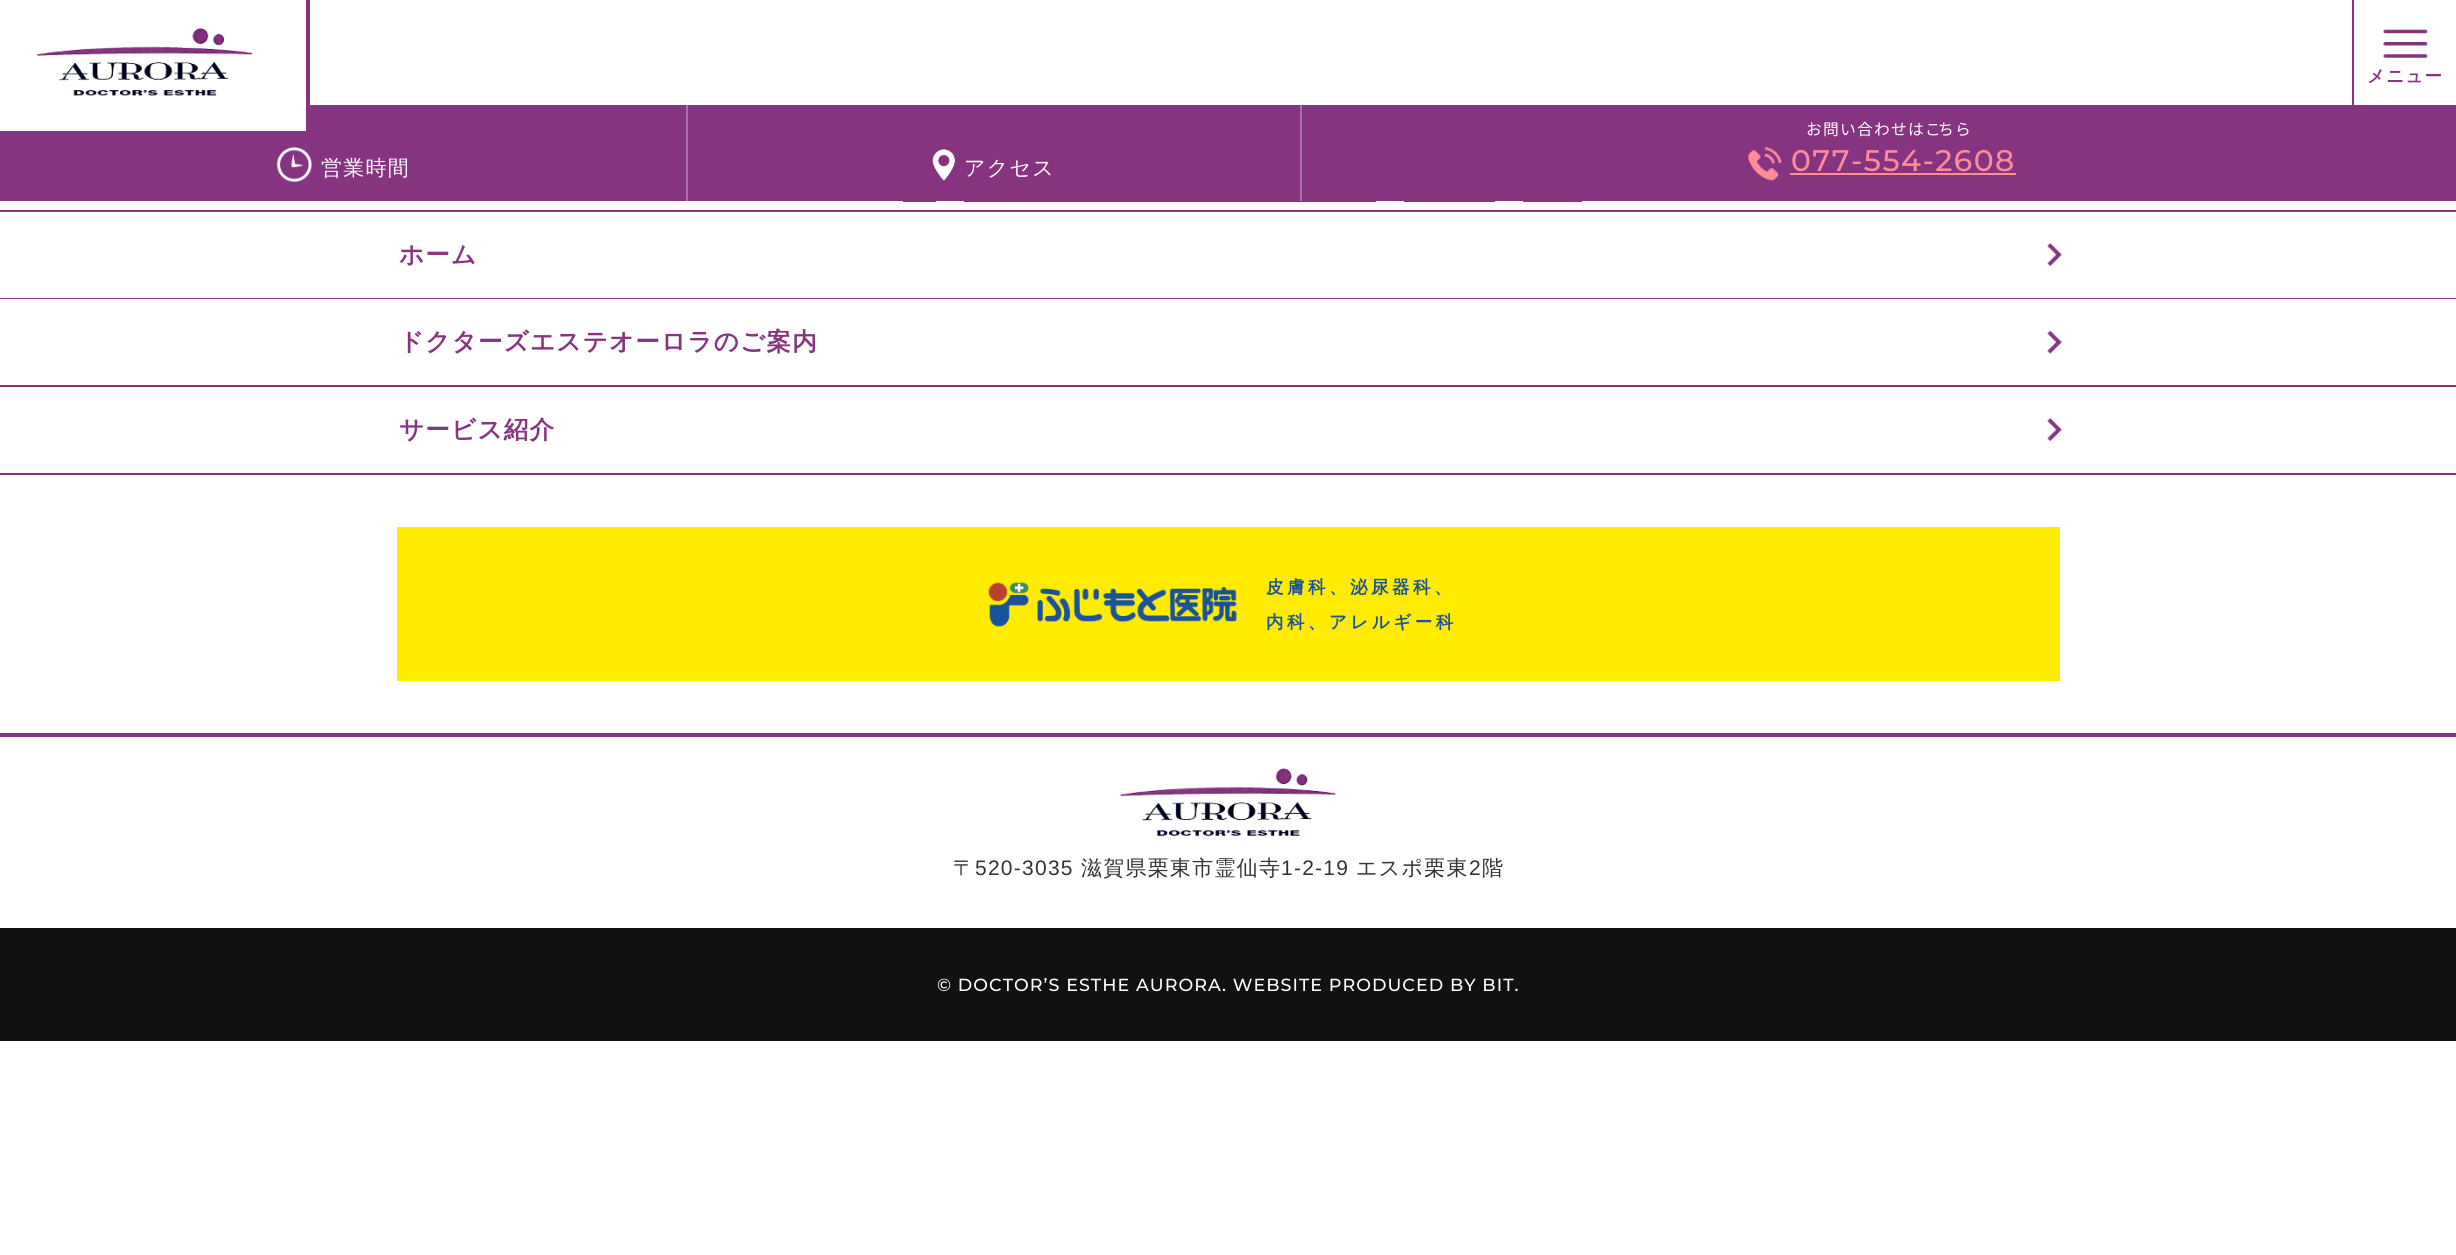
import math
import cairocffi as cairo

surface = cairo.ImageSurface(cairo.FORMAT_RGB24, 2456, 1255)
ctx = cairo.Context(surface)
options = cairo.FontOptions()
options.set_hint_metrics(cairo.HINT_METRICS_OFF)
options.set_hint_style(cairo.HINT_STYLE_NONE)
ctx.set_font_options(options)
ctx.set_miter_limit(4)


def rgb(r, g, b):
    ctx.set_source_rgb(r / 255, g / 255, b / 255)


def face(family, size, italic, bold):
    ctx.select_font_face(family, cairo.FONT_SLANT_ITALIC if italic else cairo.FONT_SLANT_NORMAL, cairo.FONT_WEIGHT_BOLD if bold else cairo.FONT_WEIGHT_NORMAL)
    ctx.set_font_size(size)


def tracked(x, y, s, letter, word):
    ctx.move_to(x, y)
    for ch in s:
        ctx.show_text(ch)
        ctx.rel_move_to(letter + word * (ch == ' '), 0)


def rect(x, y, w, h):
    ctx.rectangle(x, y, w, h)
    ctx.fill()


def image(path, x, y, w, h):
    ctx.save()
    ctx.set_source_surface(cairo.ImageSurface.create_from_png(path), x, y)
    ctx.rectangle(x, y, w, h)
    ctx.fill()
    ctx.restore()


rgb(255, 255, 255)
ctx.paint()
rgb(134, 52, 128)
rect(0, 105, 2456, 96)
rgb(255, 255, 255)
rect(0, 105, 306, 26)
image('image0.png', 36, 28, 217, 68)
rgb(134, 52, 128)
rect(306, 0, 4, 105)
image('image1.png', 2383, 29, 45, 29)
rect(2352, 0, 2, 105)
face('WenQuanYi Zen Hei', 17.5, 0, 1)
tracked(2367, 82, 'メニュー', 1.25, 0)
rgb(171, 113, 166)
rect(686, 105, 2, 96)
image('image2.png', 276, 147, 36, 35)
face('WenQuanYi Zen Hei Medium', 21, 0, 0)
rgb(255, 255, 255)
tracked(321, 175, '営業時間', 1.25, 0)
rgb(171, 113, 166)
rect(1300, 105, 2, 96)
image('image3.png', 932, 149, 23, 32)
rgb(255, 255, 255)
tracked(964, 175, 'アクセス', 1.25, 0)
face('Noto Sans JP', 15.75, 0, 0)
tracked(1806, 135, 'お問い合わせはこ', 1.25, 0)
tracked(1938, 135, 'ちら', 1.25, 0)
image('image4.png', 1748, 147, 34, 34)
face('Montserrat Medium', 29.75, 0, 0)
rgb(254, 140, 151)
tracked(1791, 171, '077-554-2608', 1.5, 0)
rect(1790, 173, 226, 2)
rgb(134, 52, 128)
rect(903, 201, 33, 1)
rect(964, 201, 412, 1)
rect(1404, 201, 91, 1)
rect(1523, 201, 59, 1)
rect(0, 210, 2456, 2)
rect(0, 298, 2456, 1)
image('image5.png', 2047, 243, 15, 23)
face('WenQuanYi Zen Hei', 24.5, 0, 1)
tracked(399, 263, 'ホーム', 1.25, 0)
rect(0, 385, 2456, 2)
image('image6.png', 2047, 330, 15, 24)
tracked(399, 350, 'ドクターズエステオーロラのご案内', 1.25, 0)
rect(0, 473, 2456, 2)
image('image5.png', 2047, 418, 15, 23)
tracked(399, 438, 'サービス紹介', 1.25, 0)
rgb(255, 236, 0)
rect(397, 527, 1663, 154)
image('image7.png', 988, 582, 249, 45)
face('WenQuanYi Zen Hei', 17.5, 0, 1)
rgb(26, 83, 156)
tracked(1266, 593, '皮膚科、泌尿器科、', 3.5, 0)
tracked(1266, 628, '内科、アレルギー科', 3.5, 0)
rgb(134, 52, 128)
rect(0, 733, 2456, 4)
image('image8.png', 1120, 768, 216, 68)
face('WenQuanYi Zen Hei Medium', 21, 0, 0)
rgb(51, 51, 51)
tracked(953, 875, '〒', 1.25, 0)
face('Liberation Sans', 21, 0, 0)
tracked(975, 875, '520-3035', 1.25, 0)
face('WenQuanYi Zen Hei Medium', 21, 0, 0)
tracked(1081, 875, '滋賀県栗東市霊仙寺', 1.25, 0)
face('Liberation Sans', 21, 0, 0)
tracked(1281, 875, '1-2-19', 1.25, 0)
face('WenQuanYi Zen Hei Medium', 21, 0, 0)
tracked(1356, 875, 'エスポ栗東', 1.25, 0)
face('Liberation Sans', 21, 0, 0)
tracked(1469, 875, '2', 1.25, 0)
face('WenQuanYi Zen Hei Medium', 21, 0, 0)
tracked(1482, 875, '階', 1.25, 0)
rgb(17, 17, 17)
rect(0, 928, 2456, 113)
face('Montserrat Medium', 17.5, 0, 0)
rgb(255, 255, 255)
tracked(937, 991, '© DOCTOR’S ESTHE AURORA. WEBSITE PRODUCED BY BIT.', 1.05, 0)
surface.write_to_png('render.png')
